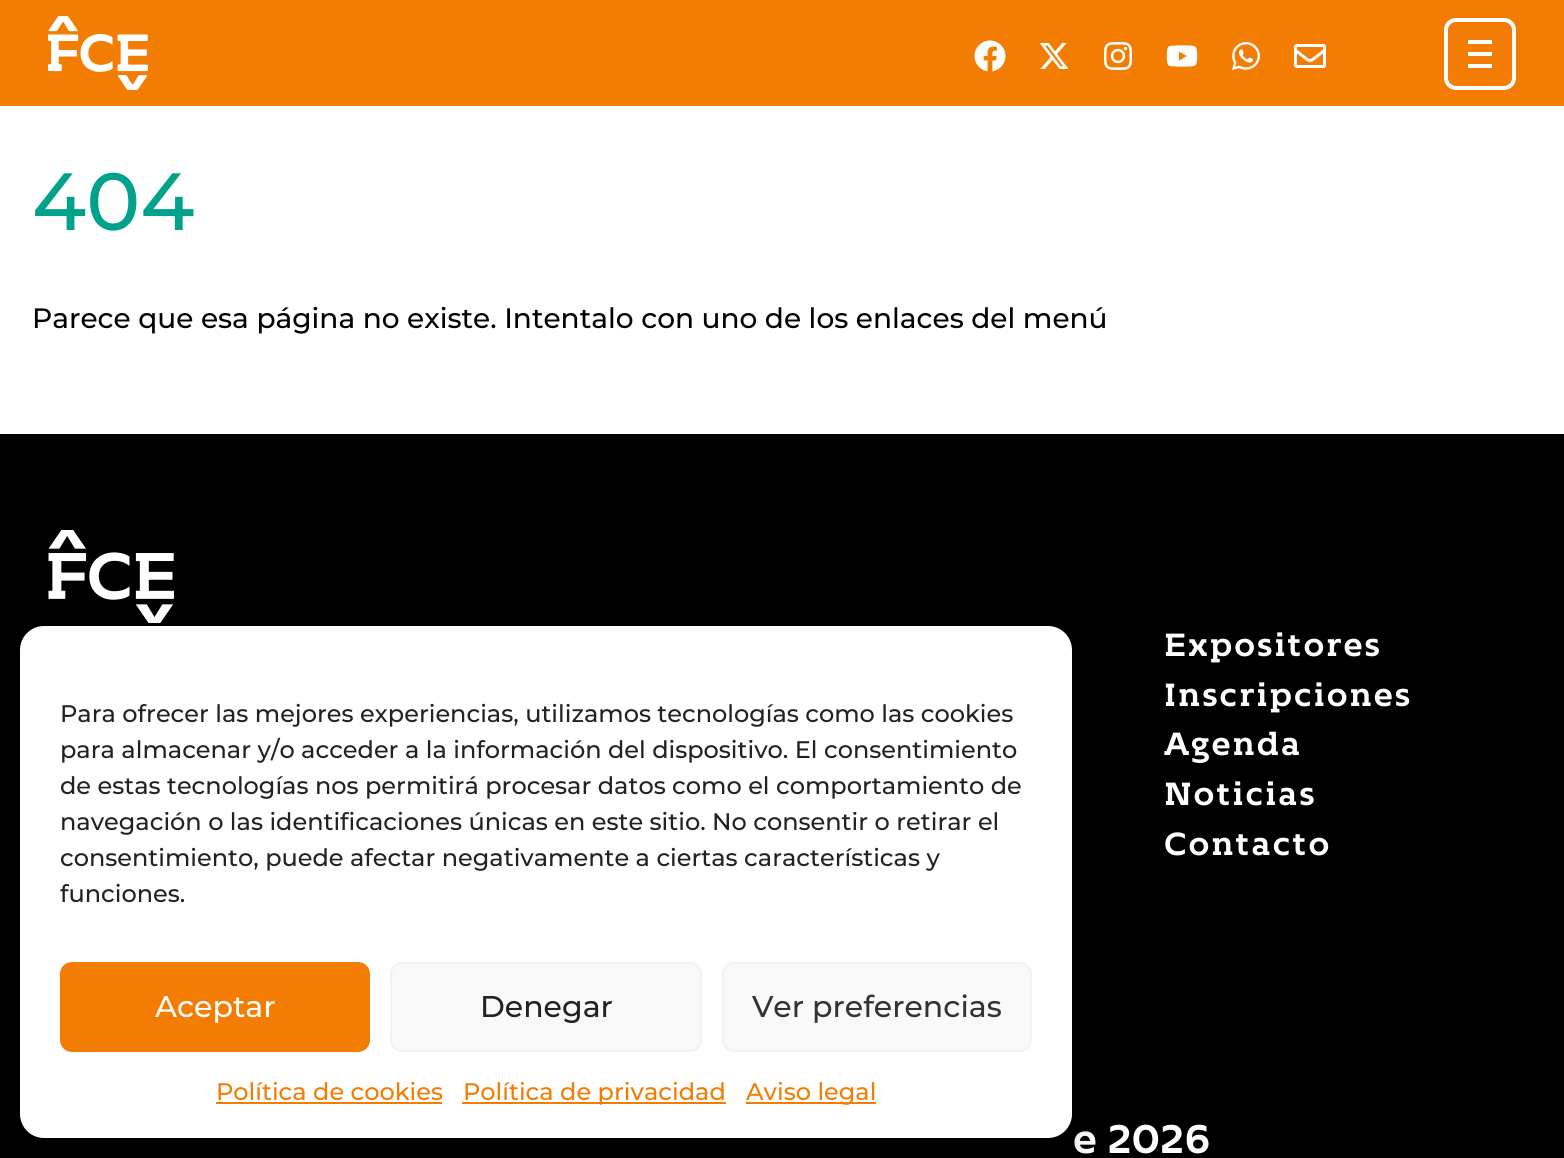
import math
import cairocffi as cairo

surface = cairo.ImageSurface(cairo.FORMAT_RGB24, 1564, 1158)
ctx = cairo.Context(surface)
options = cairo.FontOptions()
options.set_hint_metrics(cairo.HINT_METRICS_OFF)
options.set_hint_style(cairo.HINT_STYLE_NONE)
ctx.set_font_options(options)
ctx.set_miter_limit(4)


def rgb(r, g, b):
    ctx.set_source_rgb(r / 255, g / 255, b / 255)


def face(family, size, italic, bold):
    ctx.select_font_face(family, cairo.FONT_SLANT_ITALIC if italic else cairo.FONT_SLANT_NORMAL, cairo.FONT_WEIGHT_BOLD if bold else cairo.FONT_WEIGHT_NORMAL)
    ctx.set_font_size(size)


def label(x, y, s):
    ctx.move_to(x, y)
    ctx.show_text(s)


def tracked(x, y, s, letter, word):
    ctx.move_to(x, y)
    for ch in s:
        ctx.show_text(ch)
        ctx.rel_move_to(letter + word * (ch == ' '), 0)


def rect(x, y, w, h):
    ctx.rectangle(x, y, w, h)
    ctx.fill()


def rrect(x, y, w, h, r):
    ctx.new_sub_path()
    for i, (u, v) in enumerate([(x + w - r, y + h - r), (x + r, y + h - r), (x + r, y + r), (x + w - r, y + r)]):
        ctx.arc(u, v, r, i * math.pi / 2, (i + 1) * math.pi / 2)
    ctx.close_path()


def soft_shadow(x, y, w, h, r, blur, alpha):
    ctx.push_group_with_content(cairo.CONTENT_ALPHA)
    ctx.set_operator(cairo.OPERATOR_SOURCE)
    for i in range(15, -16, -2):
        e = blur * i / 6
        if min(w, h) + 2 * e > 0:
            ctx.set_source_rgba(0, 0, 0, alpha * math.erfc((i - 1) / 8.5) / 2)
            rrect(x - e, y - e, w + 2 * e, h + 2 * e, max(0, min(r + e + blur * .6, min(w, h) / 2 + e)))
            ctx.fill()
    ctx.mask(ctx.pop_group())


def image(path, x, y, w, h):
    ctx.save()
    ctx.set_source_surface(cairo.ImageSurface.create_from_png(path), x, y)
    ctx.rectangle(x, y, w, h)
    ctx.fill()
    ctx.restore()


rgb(255, 255, 255)
ctx.paint()
rgb(243, 125, 2)
rect(0, 0, 1564, 106)
image('image0.png', 48, 16, 100, 74)
image('image1.png', 974, 40, 32, 32)
image('image2.png', 1039, 43, 30, 26)
image('image3.png', 1104, 42, 28, 28)
image('image4.png', 1166, 45, 32, 22)
image('image5.png', 1232, 42, 28, 28)
image('image6.png', 1294, 44, 32, 24)
rrect(1446, 20, 68, 68, 10)
rgb(255, 255, 255)
ctx.set_line_width(4)
ctx.stroke()
rect(1468, 40, 24, 4)
rect(1468, 52, 24, 4)
rect(1468, 64, 24, 4)
face('Montserrat Medium', 81, 0, 0)
rgb(0, 162, 139)
label(32, 230, '404')
face('Montserrat Medium', 28, 0, 0)
rgb(0, 0, 0)
label(32, 328, 'Parece que esa página no existe. Intentalo con uno de los enlaces del menú')
rect(0, 434, 1564, 724)
image('image7.png', 48, 530, 126, 93)
face('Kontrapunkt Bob', 32, 0, 1)
rgb(255, 255, 255)
tracked(1164, 656, 'Expositores', 2, 0)
tracked(1164, 706, 'Inscripciones', 2, 0)
tracked(1164, 755, 'Agenda', 2, 0)
tracked(1164, 805, 'Noticias', 2, 0)
tracked(1164, 855, 'Contacto', 2, 0)
face('Kontrapunkt Bob', 40, 0, 1)
label(1073, 1153, 'e 2026')
rgb(0, 0, 0)
soft_shadow(20, 646, 1052, 512, 24, 20, 0.19)
rgb(255, 255, 255)
rrect(20, 626, 1052, 512, 24)
ctx.fill()
face('Montserrat Medium', 24, 0, 0)
rgb(34, 34, 34)
label(60, 722, 'Para ofrecer las mejores experiencias, utilizamos tecnologías como las cookies')
label(60, 758, 'para almacenar y/o acceder a la información del dispositivo. El consentimiento')
label(60, 794, 'de estas tecnologías nos permitirá procesar datos como el comportamiento de')
label(60, 830, 'navegación o las identificaciones únicas en este sitio. No consentir o retirar el')
label(60, 866, 'consentimiento, puede afectar negativamente a ciertas características y')
label(60, 902, 'funciones.')
rgb(243, 125, 2)
rrect(61, 963, 308, 88, 11)
ctx.fill_preserve()
ctx.set_line_width(2)
ctx.stroke()
face('Montserrat Medium', 30, 0, 0)
rgb(255, 255, 255)
label(155, 1017, 'Aceptar')
rgb(249, 249, 249)
rrect(391, 963, 310, 88, 11)
ctx.fill_preserve()
rgb(242, 242, 242)
ctx.stroke()
rgb(34, 34, 34)
label(480, 1017, 'Denegar')
rgb(249, 249, 249)
rrect(723, 963, 308, 88, 11)
ctx.fill_preserve()
rgb(242, 242, 242)
ctx.stroke()
rgb(51, 51, 51)
label(752, 1017, 'Ver preferencias')
face('Montserrat Medium', 24, 0, 0)
rgb(243, 125, 2)
label(216, 1100, 'Política de cookies')
rect(216, 1102, 226, 2)
rect(462, 1102, 264, 2)
label(463, 1100, 'Política de privacidad')
rect(746, 1102, 130, 2)
label(746, 1100, 'Aviso legal')
surface.write_to_png('render.png')
